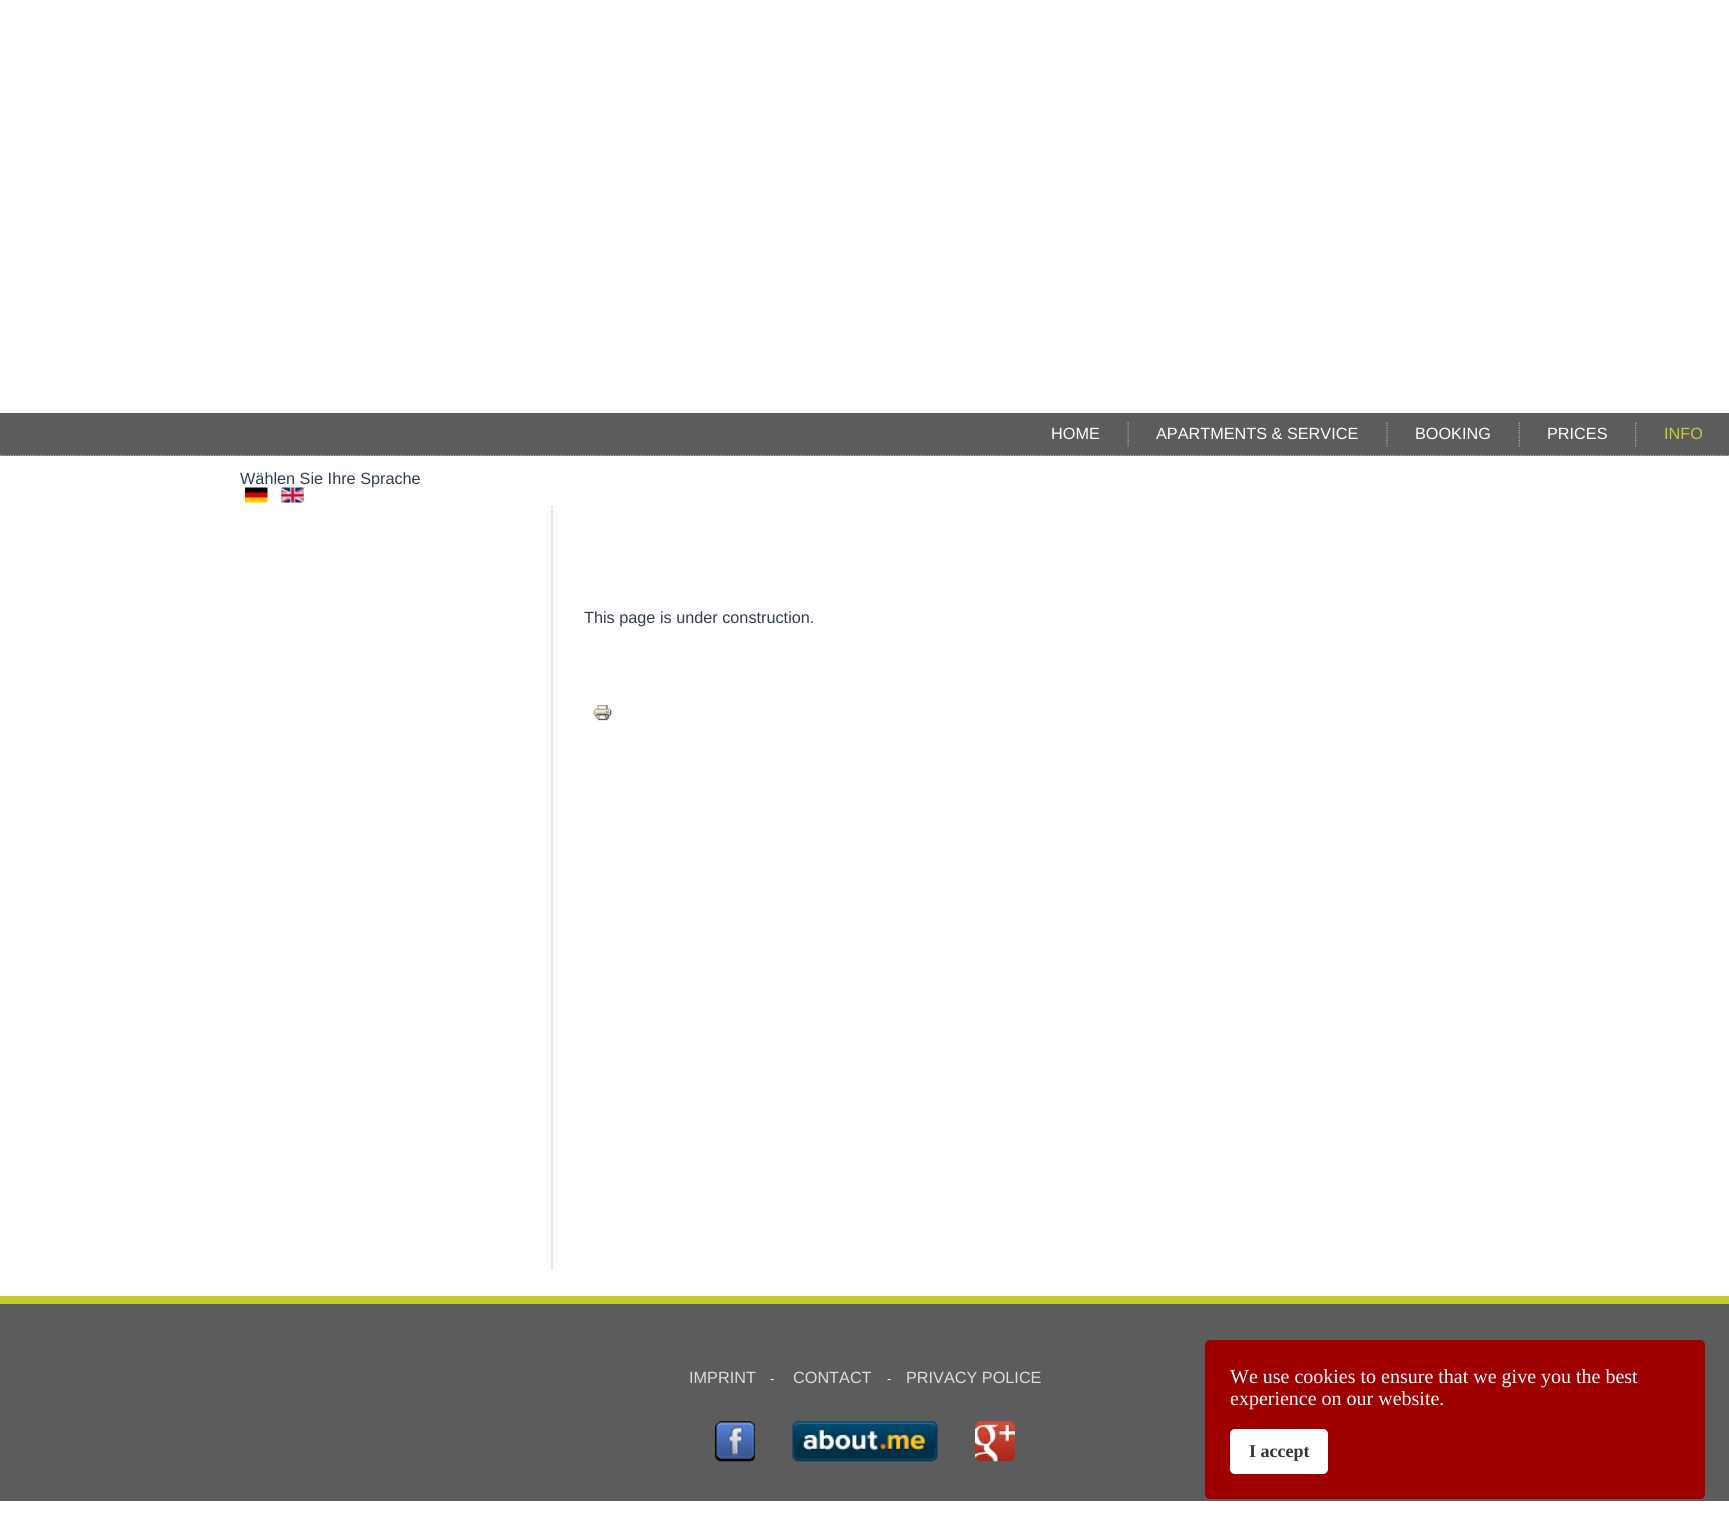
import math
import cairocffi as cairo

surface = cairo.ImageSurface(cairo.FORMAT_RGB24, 1729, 1523)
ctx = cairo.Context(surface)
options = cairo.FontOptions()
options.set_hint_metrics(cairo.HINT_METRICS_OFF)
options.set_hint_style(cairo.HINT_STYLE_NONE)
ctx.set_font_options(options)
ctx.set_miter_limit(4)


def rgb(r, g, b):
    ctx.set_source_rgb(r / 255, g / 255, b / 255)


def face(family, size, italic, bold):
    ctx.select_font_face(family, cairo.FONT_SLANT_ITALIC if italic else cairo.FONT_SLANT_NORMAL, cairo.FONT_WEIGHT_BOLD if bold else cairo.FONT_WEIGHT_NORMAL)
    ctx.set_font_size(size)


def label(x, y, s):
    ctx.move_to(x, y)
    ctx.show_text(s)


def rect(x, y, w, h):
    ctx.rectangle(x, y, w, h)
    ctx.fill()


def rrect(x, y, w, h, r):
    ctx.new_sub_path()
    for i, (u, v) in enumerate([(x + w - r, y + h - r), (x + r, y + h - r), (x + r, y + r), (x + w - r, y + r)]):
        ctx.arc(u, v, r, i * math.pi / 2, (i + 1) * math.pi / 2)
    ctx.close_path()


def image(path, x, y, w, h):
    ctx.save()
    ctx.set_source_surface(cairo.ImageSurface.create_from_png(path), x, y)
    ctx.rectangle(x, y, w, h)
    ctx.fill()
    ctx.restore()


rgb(255, 255, 255)
ctx.paint()
rgb(92, 92, 92)
rect(0, 413, 1729, 43)
ctx.new_path()
ctx.move_to(0, 455.5)
ctx.line_to(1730, 455.5)
rgb(163, 180, 200)
ctx.set_line_width(1.2)
ctx.set_dash([1.25, 1.25])
ctx.stroke()
face('Liberation Sans', 16.25, 0, 0)
rgb(255, 255, 255)
label(1051, 439, 'HOME')
image('image0.png', 1127, 422, 2, 25)
label(1156, 439, 'APARTMENTS & SERVICE')
image('image1.png', 1386, 422, 2, 25)
label(1415, 439, 'BOOKING')
image('image2.png', 1518, 422, 2, 25)
label(1547, 439, 'PRICES')
image('image3.png', 1635, 422, 2, 25)
rgb(199, 204, 51)
label(1664, 439, 'INFO')
rgb(48, 63, 80)
label(240, 484, 'Wählen Sie Ihre Sprache')
image('image4.png', 245, 487, 23, 16)
image('image5.png', 281, 487, 23, 16)
ctx.new_path()
ctx.move_to(552, 506)
ctx.line_to(552, 1271)
rgb(163, 180, 200)
ctx.stroke()
rgb(48, 63, 80)
label(584, 623, 'This page is under construction.')
image('image6.png', 593, 704, 19, 17)
rgb(92, 92, 92)
rect(0, 1304, 1729, 197)
rgb(199, 204, 51)
rect(0, 1296, 1729, 8)
rgb(214, 222, 230)
label(689, 1383, 'IMPRINT')
face('Liberation Sans', 13, 0, 0)
rgb(255, 255, 255)
label(770, 1383, '-')
face('Liberation Sans', 16.25, 0, 0)
rgb(214, 222, 230)
label(793, 1383, 'CONTACT')
face('Liberation Sans', 13, 0, 0)
rgb(255, 255, 255)
label(887, 1383, '-')
face('Liberation Sans', 16.25, 0, 0)
rgb(214, 222, 230)
label(906, 1383, 'PRIVACY POLICE')
image('image7.png', 715, 1421, 40, 41)
image('image8.png', 792, 1421, 146, 41)
image('image9.png', 975, 1421, 40, 41)
rgb(158, 0, 0)
rrect(1205, 1340, 500, 159, 5)
ctx.fill()
face('Liberation Serif', 20, 0, 0)
rgb(255, 255, 255)
label(1230, 1383, 'We use cookies to ensure that we give you the best')
label(1230, 1405, 'experience on our website.')
rrect(1230, 1429, 98, 45, 5)
ctx.fill()
face('Liberation Serif', 18, 0, 1)
rgb(51, 51, 51)
label(1249, 1457, 'I accept')
surface.write_to_png('render.png')
